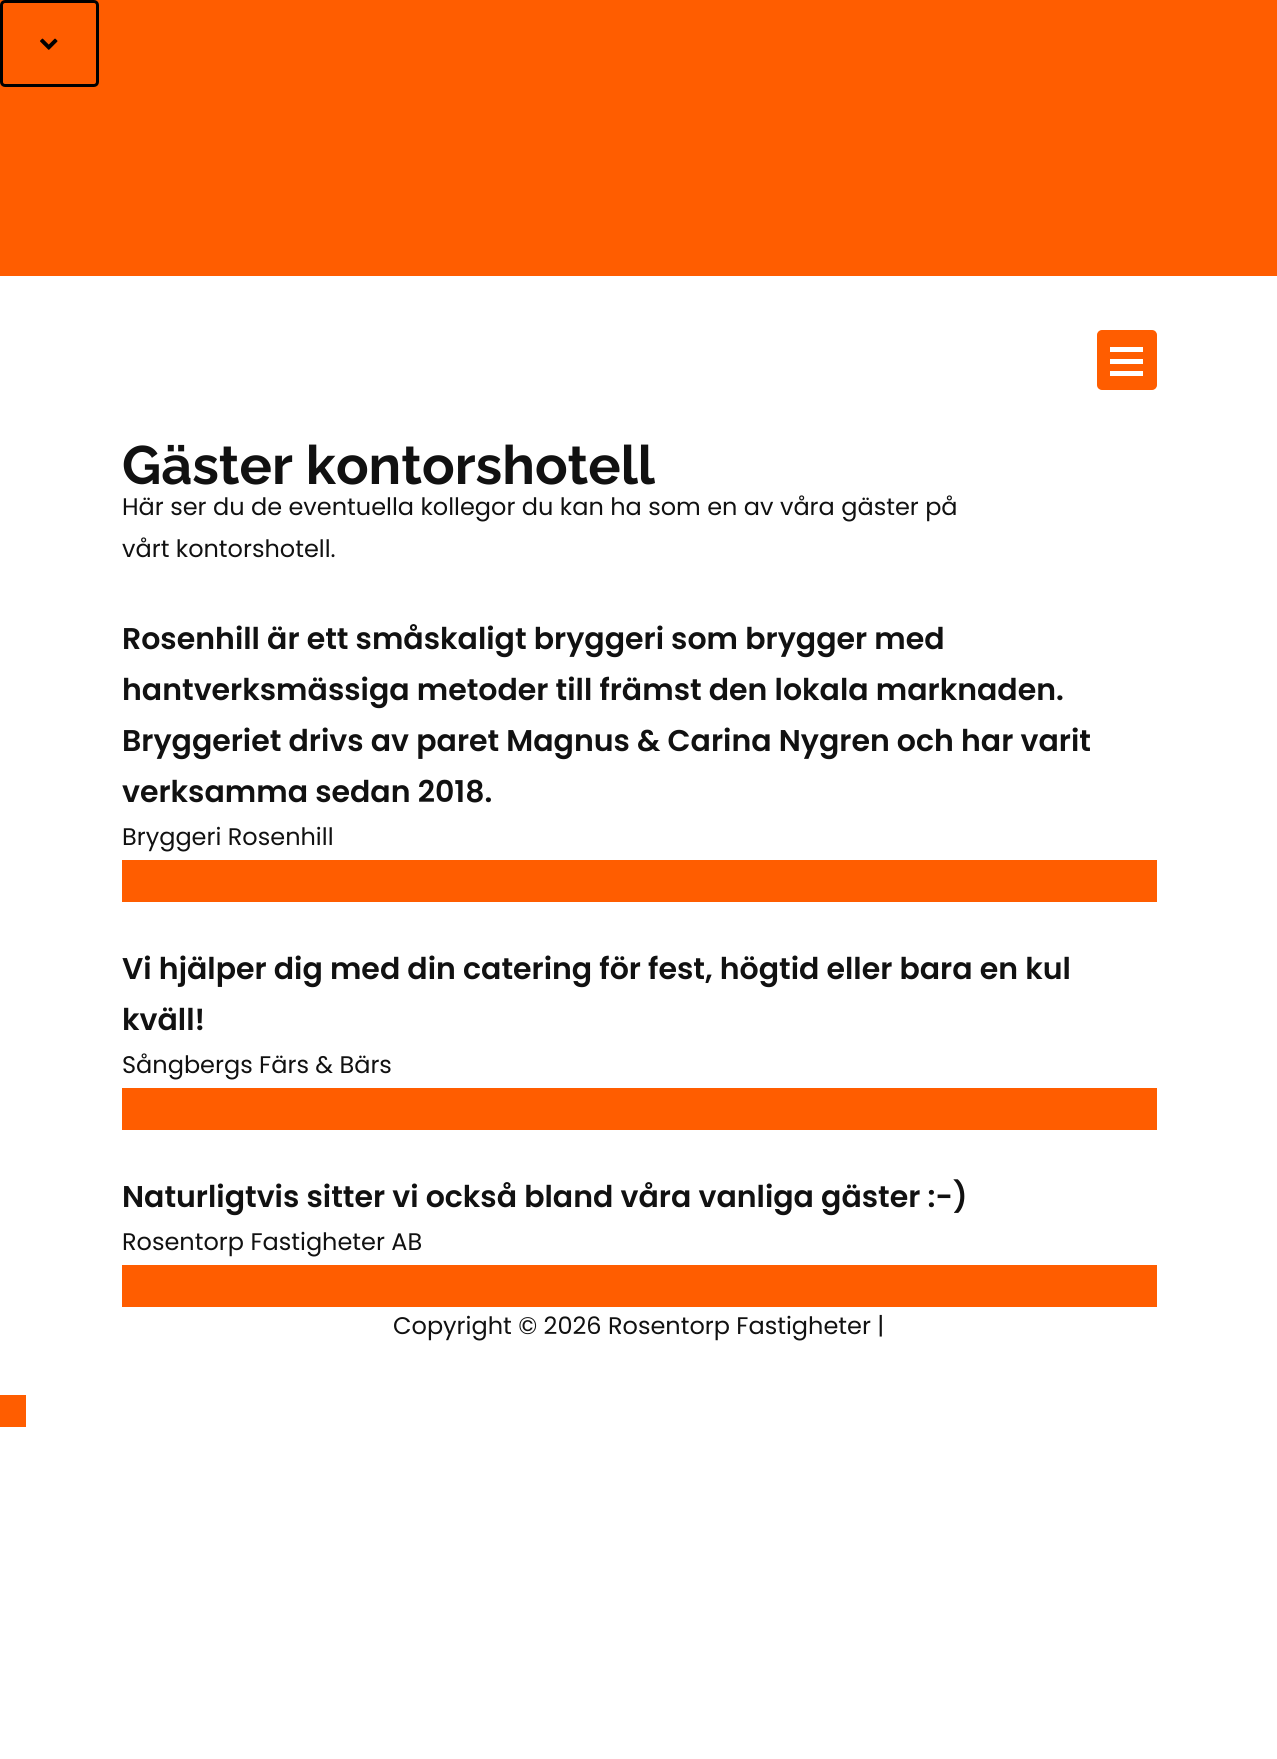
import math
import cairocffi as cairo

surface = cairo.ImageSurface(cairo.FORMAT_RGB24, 1277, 1759)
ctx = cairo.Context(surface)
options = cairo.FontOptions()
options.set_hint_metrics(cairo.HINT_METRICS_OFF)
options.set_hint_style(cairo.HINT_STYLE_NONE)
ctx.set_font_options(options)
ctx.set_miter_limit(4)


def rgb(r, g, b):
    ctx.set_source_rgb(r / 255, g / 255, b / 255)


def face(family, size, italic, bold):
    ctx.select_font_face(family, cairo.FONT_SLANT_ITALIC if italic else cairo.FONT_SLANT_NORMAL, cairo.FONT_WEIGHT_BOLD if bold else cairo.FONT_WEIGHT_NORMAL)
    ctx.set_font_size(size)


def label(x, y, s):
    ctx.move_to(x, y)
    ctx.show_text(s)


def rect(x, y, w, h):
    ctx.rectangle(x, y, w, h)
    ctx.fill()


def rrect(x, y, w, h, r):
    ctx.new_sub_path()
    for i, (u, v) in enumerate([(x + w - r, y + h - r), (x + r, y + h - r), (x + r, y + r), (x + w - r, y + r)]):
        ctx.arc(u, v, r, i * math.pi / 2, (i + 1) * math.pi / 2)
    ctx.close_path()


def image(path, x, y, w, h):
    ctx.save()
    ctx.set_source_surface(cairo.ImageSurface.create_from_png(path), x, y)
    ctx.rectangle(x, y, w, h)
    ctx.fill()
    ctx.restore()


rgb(255, 255, 255)
ctx.paint()
rgb(255, 93, 0)
rect(0, 0, 1277, 276)
rrect(1.5, 1.5, 96, 84, 3.5)
rgb(0, 0, 0)
ctx.set_line_width(3)
ctx.stroke()
image('image0.png', 40, 38, 18, 12)
rgb(255, 93, 0)
rrect(1098, 331, 58, 58, 4)
ctx.fill_preserve()
ctx.set_line_width(2)
ctx.stroke()
rgb(255, 255, 255)
rect(1110, 347, 33, 5)
rect(1110, 359, 33, 5)
rect(1110, 371, 33, 5)
face('Raleway', 54, 0, 1)
rgb(17, 17, 17)
label(122, 484, 'Gäster kontorshotell')
face('Poppins', 24, 0, 0)
label(122, 515, 'Här ser du de eventuella kollegor du kan ha som en av våra gäster på')
label(122, 557, 'vårt kontorshotell.')
face('Poppins SemiBold', 30, 0, 0)
label(122, 649, 'Rosenhill är ett småskaligt bryggeri som brygger med')
label(122, 700, 'hantverksmässiga metoder till främst den lokala marknaden.')
label(122, 751, 'Bryggeriet drivs av paret Magnus & Carina Nygren och har varit')
label(122, 802, 'verksamma sedan 2018.')
face('Poppins', 24, 0, 0)
label(122, 845, 'Bryggeri Rosenhill')
rgb(255, 93, 0)
rect(122, 860, 1035, 42)
face('Poppins SemiBold', 30, 0, 0)
rgb(17, 17, 17)
label(122, 979, 'Vi hjälper dig med din catering för fest, högtid eller bara en kul')
label(122, 1030, 'kväll!')
face('Poppins', 24, 0, 0)
label(122, 1073, 'Sångbergs Färs & Bärs')
rgb(255, 93, 0)
rect(122, 1088, 1035, 42)
face('Poppins SemiBold', 30, 0, 0)
rgb(17, 17, 17)
label(122, 1207, 'Naturligtvis sitter vi också bland våra vanliga gäster :-)')
face('Poppins', 24, 0, 0)
label(122, 1250, 'Rosentorp Fastigheter AB')
rgb(255, 93, 0)
rect(122, 1265, 1035, 42)
rgb(17, 17, 17)
label(393, 1334, 'Copyright © 2026 Rosentorp Fastigheter |')
rgb(255, 93, 0)
rect(0, 1395, 26, 32)
surface.write_to_png('render.png')
